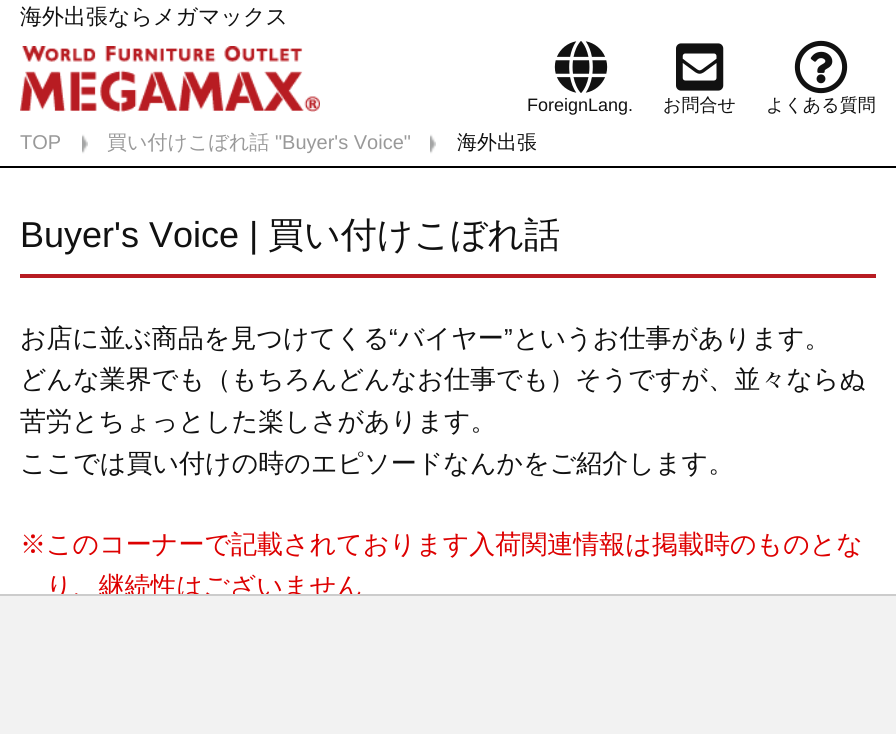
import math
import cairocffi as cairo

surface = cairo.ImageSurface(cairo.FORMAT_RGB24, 896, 754)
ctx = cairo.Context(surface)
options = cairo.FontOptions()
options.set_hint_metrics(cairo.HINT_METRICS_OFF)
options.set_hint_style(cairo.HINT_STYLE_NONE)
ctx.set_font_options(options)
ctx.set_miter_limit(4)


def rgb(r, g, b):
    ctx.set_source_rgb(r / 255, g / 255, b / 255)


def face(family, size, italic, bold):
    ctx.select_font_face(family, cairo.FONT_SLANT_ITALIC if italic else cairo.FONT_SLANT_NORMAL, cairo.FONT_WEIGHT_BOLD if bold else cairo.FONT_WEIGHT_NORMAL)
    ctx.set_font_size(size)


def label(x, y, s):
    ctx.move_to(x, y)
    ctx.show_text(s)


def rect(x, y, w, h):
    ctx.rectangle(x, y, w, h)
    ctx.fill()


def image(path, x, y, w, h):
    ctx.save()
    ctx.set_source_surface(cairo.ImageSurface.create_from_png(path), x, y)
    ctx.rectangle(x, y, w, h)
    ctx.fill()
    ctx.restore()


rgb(255, 255, 255)
ctx.paint()
face('WenQuanYi Zen Hei Medium', 22, 0, 0)
rgb(17, 17, 17)
label(20, 24, '海外出張ならメガマックス')
image('image0.png', 20, 46, 300, 66)
image('image1.png', 554, 41, 54, 52)
face('Liberation Sans', 18, 0, 0)
label(527, 111, 'ForeignLang.')
image('image2.png', 676, 43, 48, 48)
face('WenQuanYi Zen Hei Medium', 18, 0, 0)
label(663, 111, 'お問合せ')
image('image3.png', 794, 40, 54, 54)
label(766, 111, 'よくある質問')
face('WenQuanYi Zen Hei Medium', 26, 0, 0)
rgb(221, 0, 0)
label(46, 595, 'り、継続性はございません')
rgb(204, 204, 204)
rect(0, 594, 896, 2)
rgb(242, 242, 242)
rect(0, 596, 896, 138)
rgb(0, 0, 0)
rect(0, 166, 896, 2)
face('Liberation Sans', 20, 0, 0)
rgb(153, 153, 153)
label(20, 149, 'TOP')
image('image4.png', 82, 134, 6, 20)
face('WenQuanYi Zen Hei Medium', 20, 0, 0)
label(107, 149, '買い付けこぼれ話')
face('Liberation Sans', 20, 0, 0)
label(275, 149, '"Buyer\'s Voice"')
image('image4.png', 430, 134, 6, 20)
face('WenQuanYi Zen Hei Medium', 20, 0, 0)
rgb(17, 17, 17)
label(457, 149, '海外出張')
rgb(184, 28, 34)
rect(20, 274, 856, 4)
face('Liberation Sans', 36, 0, 0)
rgb(17, 17, 17)
label(20, 247, 'Buyer\'s Voice |')
face('WenQuanYi Zen Hei Medium', 36, 0, 0)
label(268, 247, '買い付けこぼれ話')
face('WenQuanYi Zen Hei Medium', 26, 0, 0)
label(20, 347, 'お店に並ぶ商品を見つけてくる')
face('Liberation Sans', 26, 0, 0)
label(389, 347, '“')
face('WenQuanYi Zen Hei Medium', 26, 0, 0)
label(398, 347, 'バイヤー')
face('Liberation Sans', 26, 0, 0)
label(504, 347, '”')
face('WenQuanYi Zen Hei Medium', 26, 0, 0)
label(513, 347, 'というお仕事があります。')
label(20, 388, 'どんな業界でも（もちろんどんなお仕事でも）そうですが、並々ならぬ')
label(20, 430, '苦労とちょっとした楽しさがあります。')
label(20, 472, 'ここでは買い付けの時のエピソードなんかをご紹介します。')
rgb(221, 0, 0)
label(20, 553, '※このコーナーで記載されております入荷関連情報は掲載時のものとな')
surface.write_to_png('render.png')
